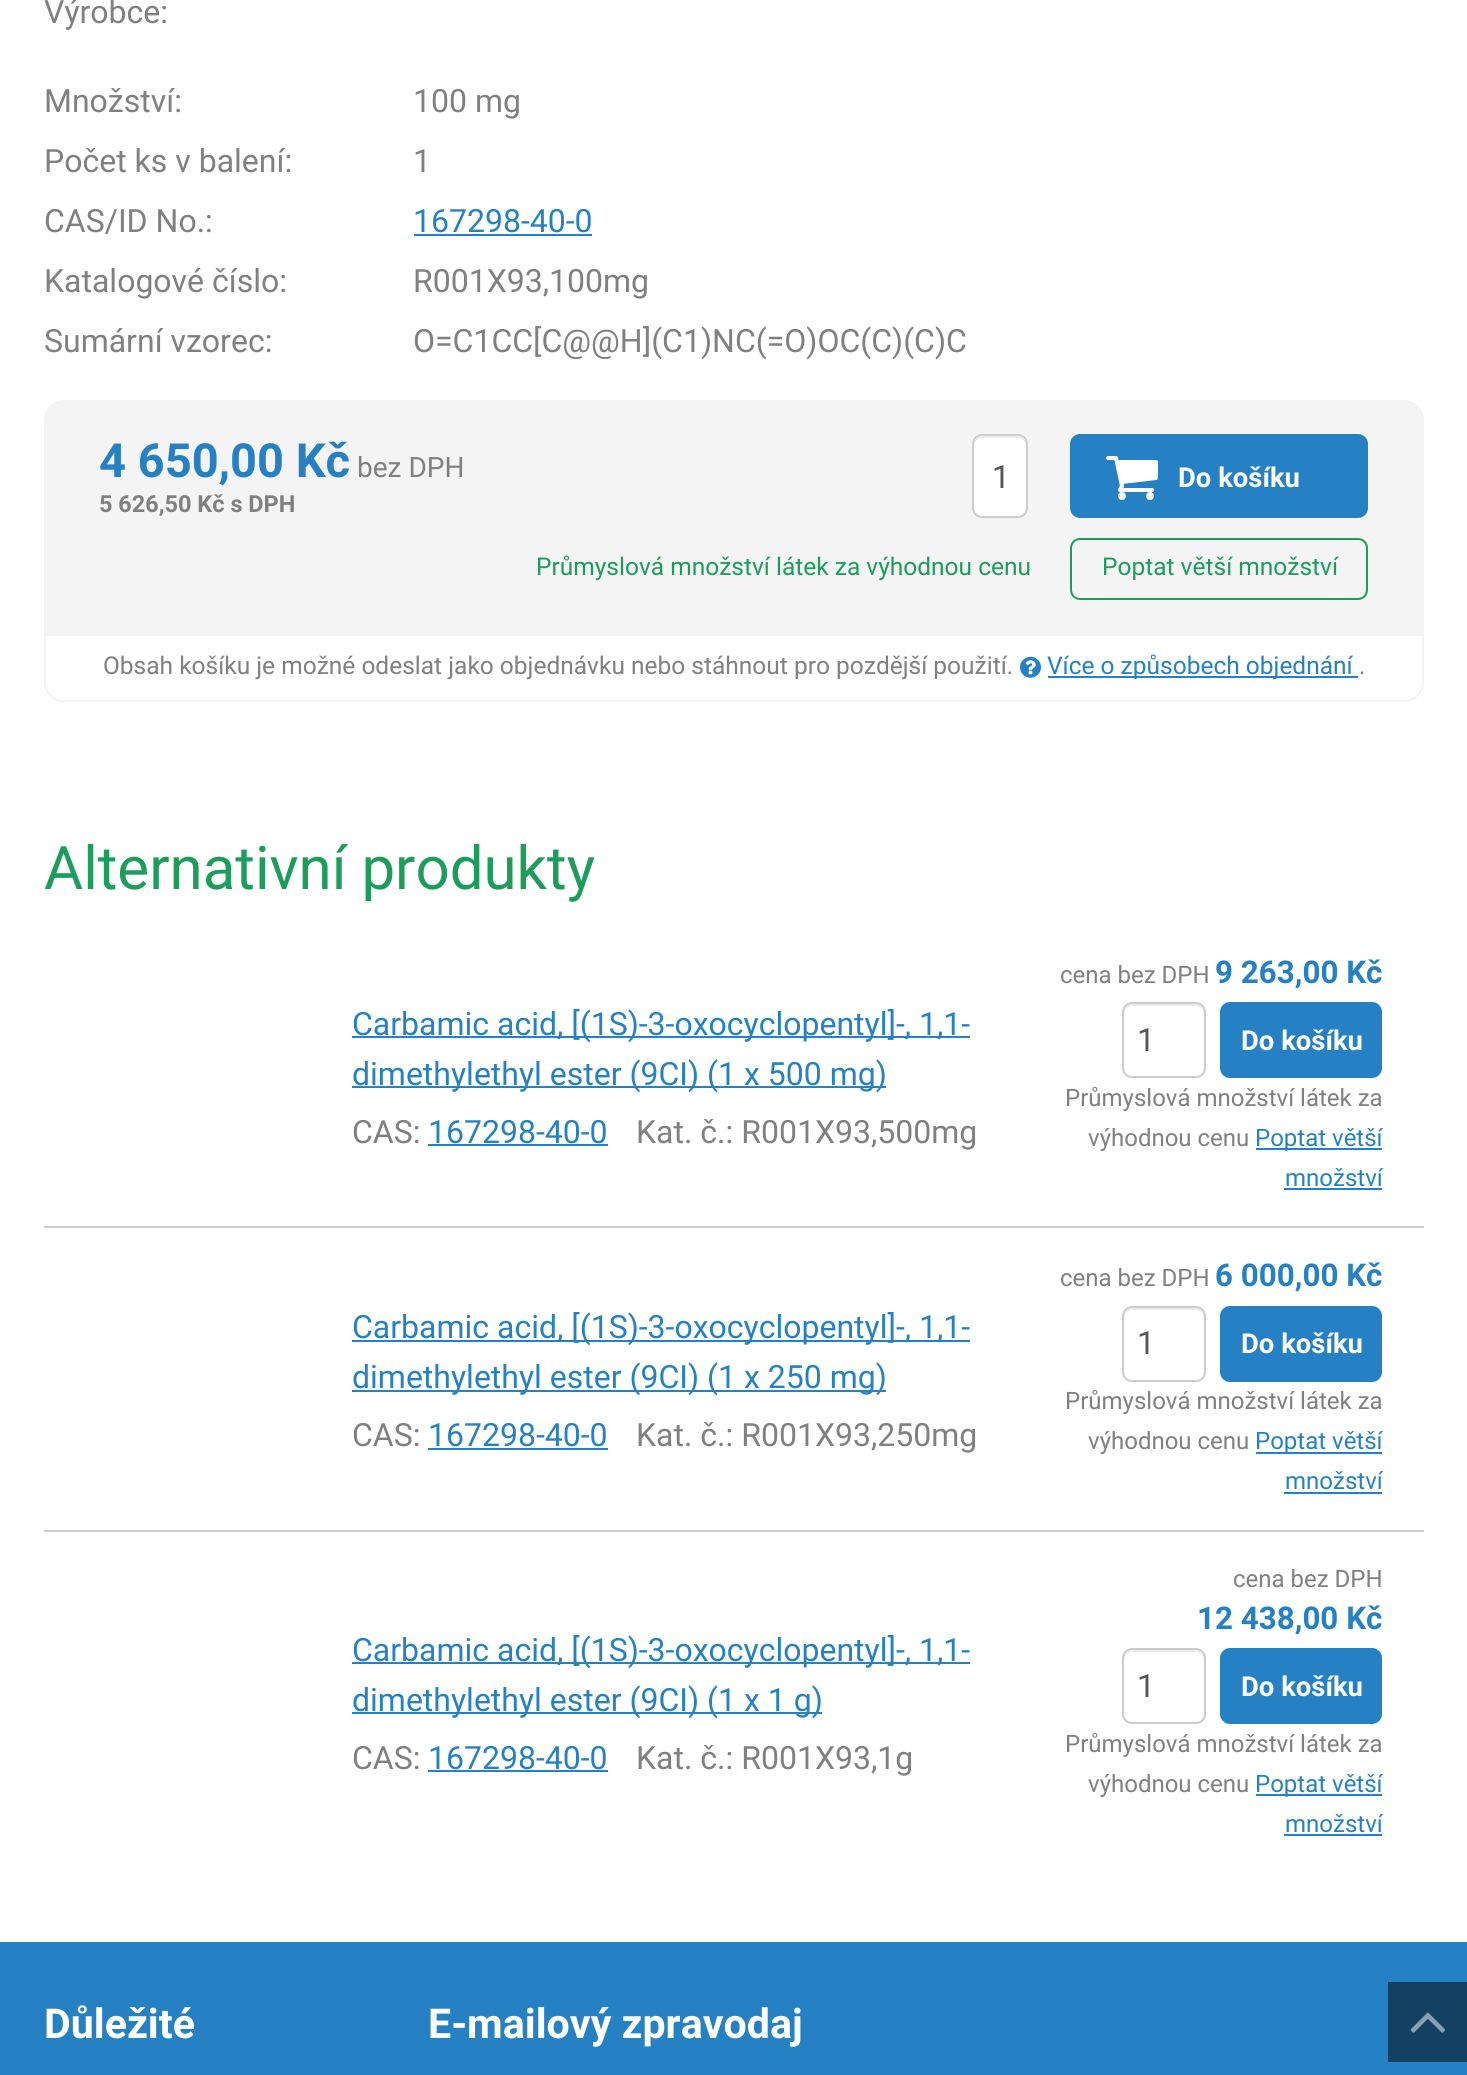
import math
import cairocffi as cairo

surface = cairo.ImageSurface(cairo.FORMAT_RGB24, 1467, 2075)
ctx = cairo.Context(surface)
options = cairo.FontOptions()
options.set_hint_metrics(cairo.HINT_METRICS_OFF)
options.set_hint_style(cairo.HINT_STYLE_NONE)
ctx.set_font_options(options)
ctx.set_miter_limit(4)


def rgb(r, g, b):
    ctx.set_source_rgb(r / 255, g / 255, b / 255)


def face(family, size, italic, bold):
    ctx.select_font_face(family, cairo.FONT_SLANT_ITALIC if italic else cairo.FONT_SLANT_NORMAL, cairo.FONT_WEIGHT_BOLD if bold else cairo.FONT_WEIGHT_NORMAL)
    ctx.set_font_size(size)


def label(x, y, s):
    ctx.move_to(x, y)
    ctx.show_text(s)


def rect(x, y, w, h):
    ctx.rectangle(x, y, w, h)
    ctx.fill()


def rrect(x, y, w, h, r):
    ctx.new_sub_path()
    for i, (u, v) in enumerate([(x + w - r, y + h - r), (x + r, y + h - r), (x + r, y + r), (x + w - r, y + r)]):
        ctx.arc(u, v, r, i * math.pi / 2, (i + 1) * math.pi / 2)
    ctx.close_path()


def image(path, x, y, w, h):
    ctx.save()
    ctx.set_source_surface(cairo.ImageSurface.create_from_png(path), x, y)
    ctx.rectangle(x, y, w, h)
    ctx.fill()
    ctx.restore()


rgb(255, 255, 255)
ctx.paint()
face('Roboto', 32, 0, 0)
rgb(128, 128, 128)
label(44, 23, 'Výrobce:')
label(44, 112, 'Množství:')
label(413, 112, '100 mg')
label(44, 172, 'Počet ks v balení:')
label(413, 172, '1')
label(44, 232, 'CAS/ID No.:')
rgb(37, 129, 196)
label(413, 232, '167298-40-0')
rect(414, 234, 178, 2)
rgb(128, 128, 128)
label(44, 292, 'Katalogové číslo:')
label(413, 292, 'R001X93,100mg')
label(44, 352, 'Sumární vzorec:')
label(413, 352, 'O=C1CC[C@@H](C1)NC(=O)OC(C)(C)C')
rgb(244, 244, 244)
rrect(44, 400, 1380, 302, 20)
ctx.fill()
face('Roboto', 48, 0, 1)
rgb(37, 129, 196)
label(99, 477, '4 650,00 Kč')
face('Roboto', 28, 0, 0)
rgb(128, 128, 128)
label(357, 477, 'bez DPH')
face('Roboto', 24, 0, 1)
label(99, 512, '5 626,50 Kč s DPH')
rgb(255, 255, 255)
rrect(972, 434, 56, 84, 10)
ctx.fill()
rgb(236, 236, 236)
ctx.new_path()
ctx.move_to(982, 438)
ctx.line_to(1018, 438)
ctx.curve_to(1022, 438, 1026, 442, 1026, 446)
ctx.curve_to(1026, 436, 1020, 436, 1012, 436)
ctx.line_to(988, 436)
ctx.curve_to(980, 436, 974, 436, 974, 446)
ctx.curve_to(974, 442, 978, 438, 982, 438)
ctx.close_path()
ctx.fill()
rrect(973, 435, 54, 82, 9)
rgb(204, 204, 204)
ctx.stroke()
face('Roboto', 32, 0, 0)
rgb(85, 85, 85)
label(992, 488, '1')
rgb(37, 129, 196)
rrect(1070, 434, 298, 84, 10)
ctx.fill()
image('image0.png', 1106, 456, 52, 44)
face('Roboto', 28, 0, 1)
rgb(255, 255, 255)
label(1178, 487, 'Do košíku')
face('Roboto', 24.5, 0, 0)
rgb(28, 157, 91)
label(536, 575, 'Průmyslová množství látek za výhodnou cenu')
rrect(1071, 539, 296, 60, 9)
ctx.stroke()
label(1102, 575, 'Poptat větší množství')
rgb(255, 255, 255)
ctx.new_path()
ctx.move_to(45, 635)
ctx.line_to(1423, 635)
ctx.line_to(1423, 682)
ctx.curve_to(1423, 692.5, 1414.5, 701, 1404, 701)
ctx.line_to(64, 701)
ctx.curve_to(53.5, 701, 45, 692.5, 45, 682)
ctx.close_path()
ctx.fill_preserve()
rgb(244, 244, 244)
ctx.stroke()
rgb(128, 128, 128)
label(103, 674, 'Obsah košíku je možné odeslat jako objednávku nebo stáhnout pro pozdější použití.')
image('image1.png', 1020, 656, 21, 22)
rgb(37, 129, 196)
rect(1048, 676, 310, 2)
label(1047, 674, 'Více o způsobech objednání')
rgb(128, 128, 128)
label(1359, 674, '.')
face('Roboto', 60, 0, 0)
rgb(28, 157, 91)
label(44, 889, 'Alternativní produkty')
rgb(37, 129, 196)
rect(352, 1036, 618, 2)
face('Roboto', 32, 0, 0)
label(352, 1035, 'Carbamic acid, [(1S)-3-oxocyclopentyl]-, 1,1-')
rect(352, 1086, 534, 2)
label(352, 1085, 'dimethylethyl ester (9CI) (1 x 500 mg)')
rgb(128, 128, 128)
label(352, 1143, 'CAS:')
rgb(37, 129, 196)
label(428, 1143, '167298-40-0')
rect(428, 1144, 180, 2)
rgb(128, 128, 128)
label(636, 1143, 'Kat. č.: R001X93,500mg')
face('Roboto', 24, 0, 0)
label(1060, 983, 'cena bez DPH')
face('Roboto', 32, 0, 1)
rgb(37, 129, 196)
label(1215, 983, '9 263,00 Kč')
rgb(236, 236, 236)
ctx.new_path()
ctx.move_to(1132, 1006)
ctx.line_to(1196, 1006)
ctx.curve_to(1200, 1006, 1204, 1010, 1204, 1014)
ctx.curve_to(1204, 1002, 1195, 1004, 1185, 1004)
ctx.line_to(1143, 1004)
ctx.curve_to(1133, 1004, 1124, 1002, 1124, 1014)
ctx.curve_to(1124, 1010, 1128, 1006, 1132, 1006)
ctx.close_path()
ctx.fill()
rrect(1123, 1003, 82, 74, 9)
rgb(204, 204, 204)
ctx.stroke()
face('Roboto', 32, 0, 0)
rgb(85, 85, 85)
label(1137, 1051, '1')
rgb(37, 129, 196)
rrect(1220, 1002, 162, 76, 10)
ctx.fill()
face('Roboto', 28, 0, 1)
rgb(255, 255, 255)
label(1241, 1050, 'Do košíku')
face('Roboto', 24, 0, 0)
rgb(128, 128, 128)
label(1065, 1106, 'Průmyslová množství látek za')
label(1088, 1146, 'výhodnou cenu')
rgb(37, 129, 196)
rect(1256, 1148, 126, 2)
label(1255, 1146, 'Poptat větší')
label(1285, 1186, 'množství')
rect(1284, 1188, 98, 2)
rgb(204, 204, 204)
rect(44, 1226, 1380, 2)
rgb(37, 129, 196)
rect(352, 1340, 618, 2)
face('Roboto', 32, 0, 0)
label(352, 1338, 'Carbamic acid, [(1S)-3-oxocyclopentyl]-, 1,1-')
rect(352, 1390, 534, 2)
label(352, 1388, 'dimethylethyl ester (9CI) (1 x 250 mg)')
rgb(128, 128, 128)
label(352, 1446, 'CAS:')
rgb(37, 129, 196)
label(428, 1446, '167298-40-0')
rect(428, 1448, 180, 2)
rgb(128, 128, 128)
label(636, 1446, 'Kat. č.: R001X93,250mg')
face('Roboto', 24, 0, 0)
label(1060, 1286, 'cena bez DPH')
face('Roboto', 32, 0, 1)
rgb(37, 129, 196)
label(1215, 1286, '6 000,00 Kč')
rgb(236, 236, 236)
ctx.new_path()
ctx.move_to(1132, 1310)
ctx.line_to(1196, 1310)
ctx.curve_to(1200, 1310, 1204, 1314, 1204, 1318)
ctx.curve_to(1204, 1306, 1195, 1308, 1185, 1308)
ctx.line_to(1143, 1308)
ctx.curve_to(1133, 1308, 1124, 1306, 1124, 1318)
ctx.curve_to(1124, 1314, 1128, 1310, 1132, 1310)
ctx.close_path()
ctx.fill()
rrect(1123, 1307, 82, 74, 9)
rgb(204, 204, 204)
ctx.stroke()
face('Roboto', 32, 0, 0)
rgb(85, 85, 85)
label(1137, 1354, '1')
rgb(37, 129, 196)
rrect(1220, 1306, 162, 76, 10)
ctx.fill()
face('Roboto', 28, 0, 1)
rgb(255, 255, 255)
label(1241, 1353, 'Do košíku')
face('Roboto', 24, 0, 0)
rgb(128, 128, 128)
label(1065, 1409, 'Průmyslová množství látek za')
label(1088, 1449, 'výhodnou cenu')
rgb(37, 129, 196)
rect(1256, 1452, 126, 2)
label(1255, 1449, 'Poptat větší')
label(1285, 1489, 'množství')
rect(1284, 1492, 98, 2)
rgb(204, 204, 204)
rect(44, 1530, 1380, 2)
rgb(37, 129, 196)
rect(352, 1662, 618, 2)
face('Roboto', 32, 0, 0)
label(352, 1661, 'Carbamic acid, [(1S)-3-oxocyclopentyl]-, 1,1-')
rect(352, 1712, 470, 2)
label(352, 1711, 'dimethylethyl ester (9CI) (1 x 1 g)')
rgb(128, 128, 128)
label(352, 1769, 'CAS:')
rgb(37, 129, 196)
label(428, 1769, '167298-40-0')
rect(428, 1770, 180, 2)
rgb(128, 128, 128)
label(636, 1769, 'Kat. č.: R001X93,1g')
face('Roboto', 24, 0, 0)
label(1233, 1587, 'cena bez DPH')
face('Roboto', 32, 0, 1)
rgb(37, 129, 196)
label(1197, 1629, '12 438,00 Kč')
rgb(236, 236, 236)
ctx.new_path()
ctx.move_to(1132, 1652)
ctx.line_to(1196, 1652)
ctx.curve_to(1200, 1652, 1204, 1656, 1204, 1660)
ctx.curve_to(1204, 1648, 1195, 1650, 1185, 1650)
ctx.line_to(1143, 1650)
ctx.curve_to(1133, 1650, 1124, 1648, 1124, 1660)
ctx.curve_to(1124, 1656, 1128, 1652, 1132, 1652)
ctx.close_path()
ctx.fill()
rrect(1123, 1649, 82, 74, 9)
rgb(204, 204, 204)
ctx.stroke()
face('Roboto', 32, 0, 0)
rgb(85, 85, 85)
label(1137, 1697, '1')
rgb(37, 129, 196)
rrect(1220, 1648, 162, 76, 10)
ctx.fill()
face('Roboto', 28, 0, 1)
rgb(255, 255, 255)
label(1241, 1696, 'Do košíku')
face('Roboto', 24, 0, 0)
rgb(128, 128, 128)
label(1065, 1752, 'Průmyslová množství látek za')
label(1088, 1792, 'výhodnou cenu')
rgb(37, 129, 196)
rect(1256, 1794, 126, 2)
label(1255, 1792, 'Poptat větší')
label(1285, 1832, 'množství')
rect(1284, 1834, 98, 2)
rect(0, 1942, 1467, 133)
face('Roboto', 42, 0, 1)
rgb(255, 255, 255)
label(44, 2038, 'Důležité')
label(428, 2038, 'E-mailový zpravodaj')
rgb(19, 65, 98)
rect(1388, 1982, 79, 80)
image('image2.png', 1410, 2012, 36, 21)
surface.write_to_png('render.png')
